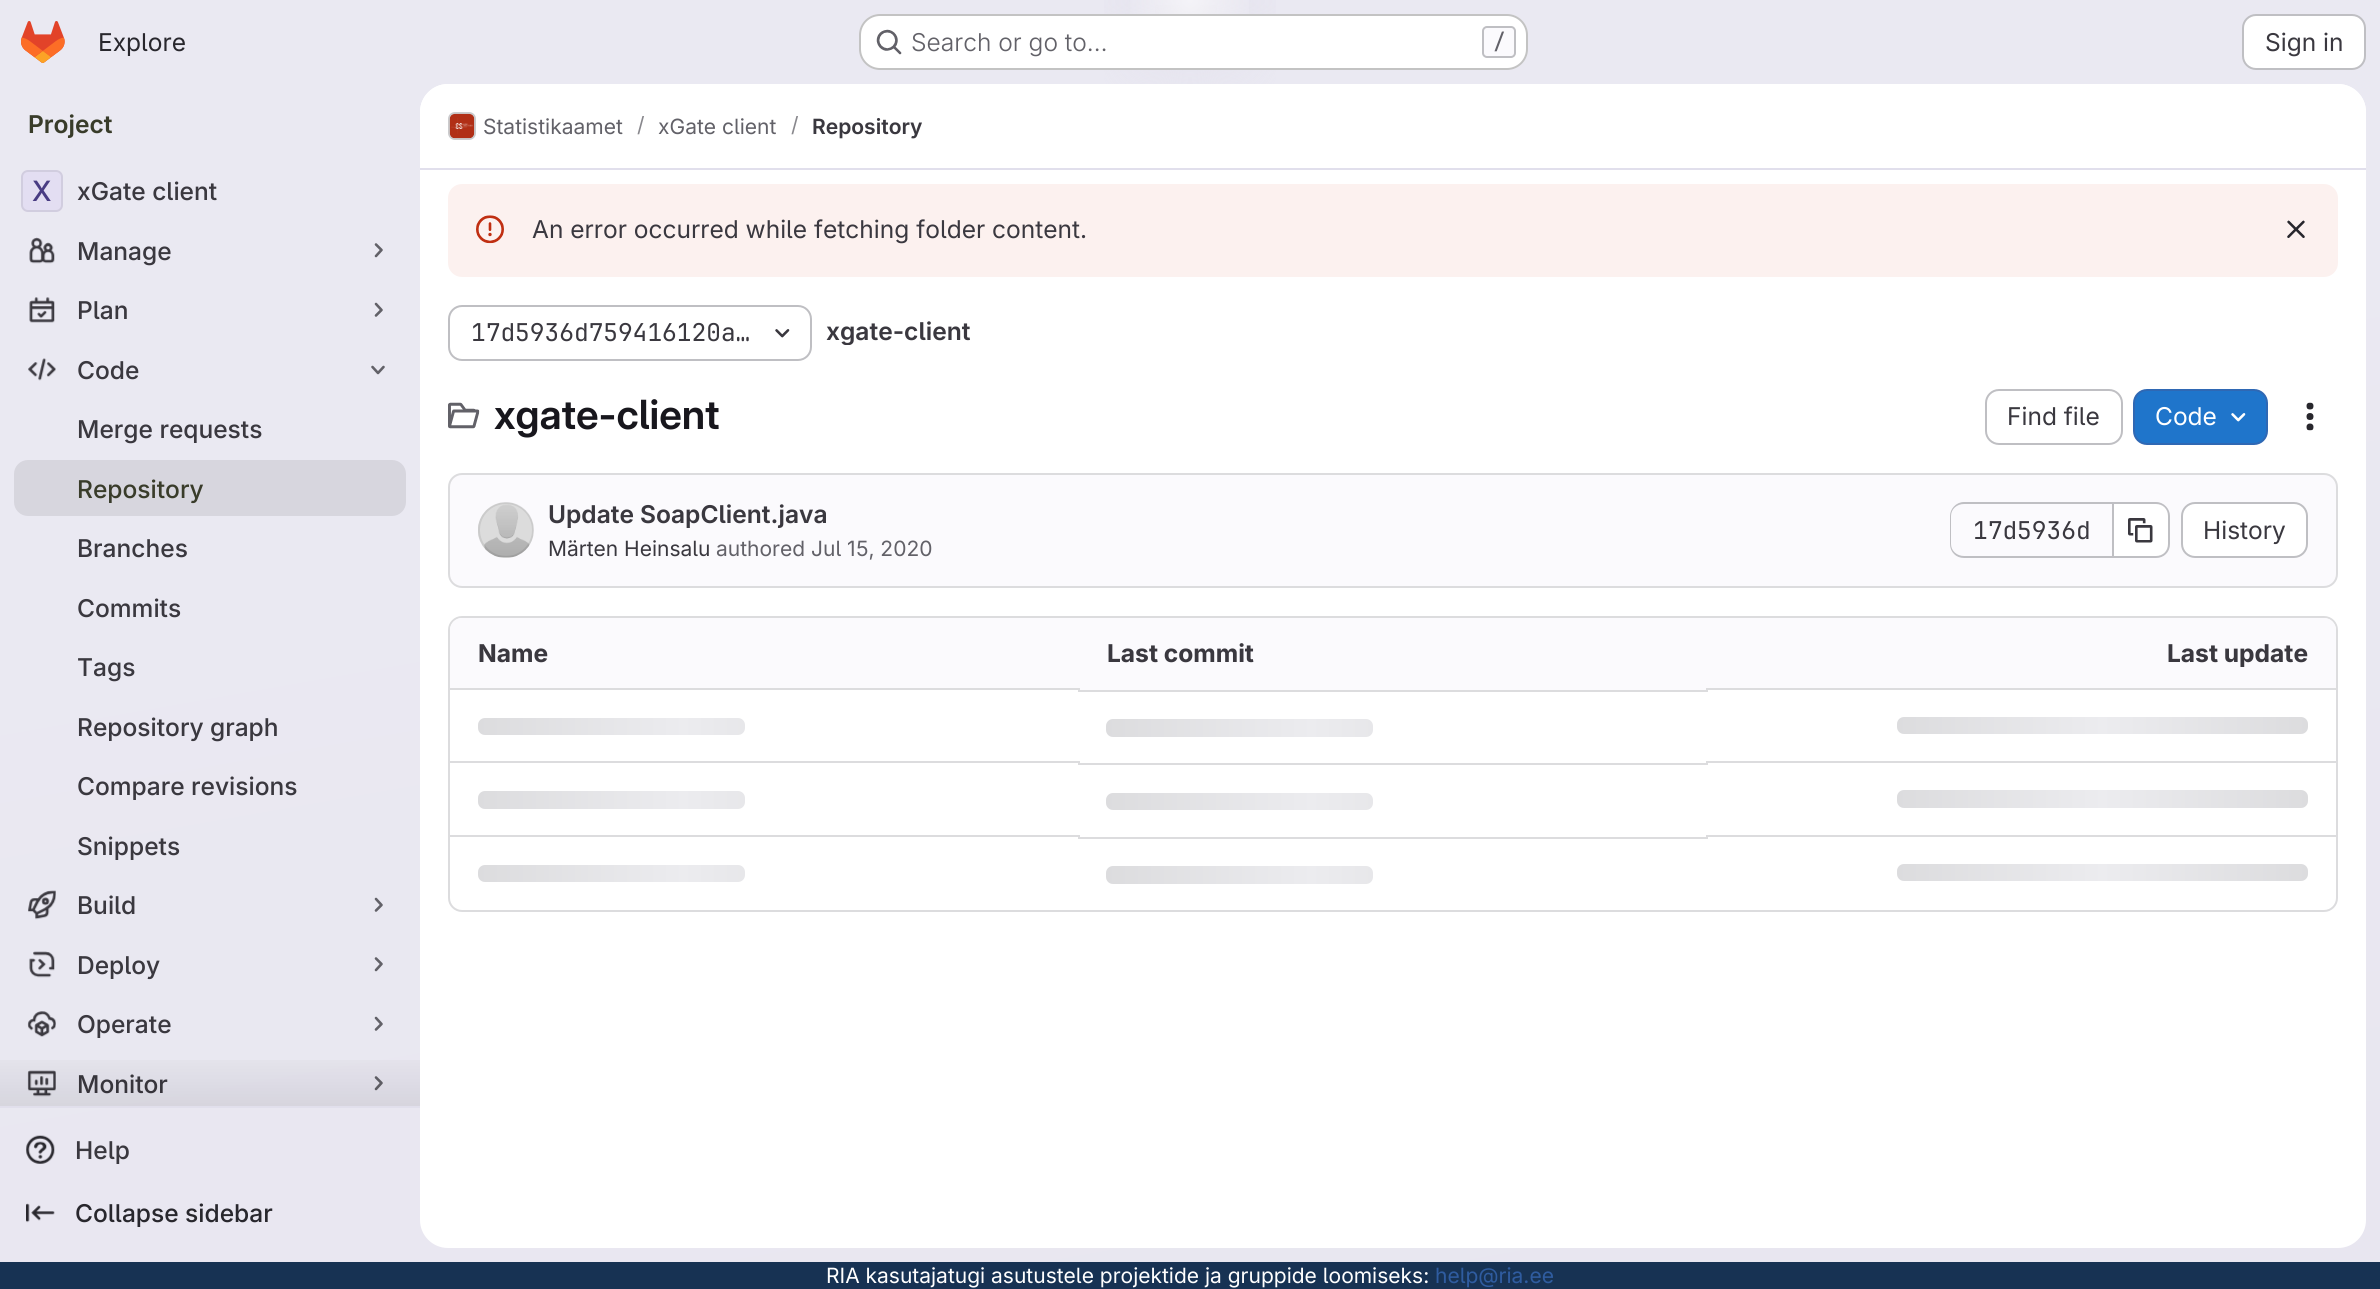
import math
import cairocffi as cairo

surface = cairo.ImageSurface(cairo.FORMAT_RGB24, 2380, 1289)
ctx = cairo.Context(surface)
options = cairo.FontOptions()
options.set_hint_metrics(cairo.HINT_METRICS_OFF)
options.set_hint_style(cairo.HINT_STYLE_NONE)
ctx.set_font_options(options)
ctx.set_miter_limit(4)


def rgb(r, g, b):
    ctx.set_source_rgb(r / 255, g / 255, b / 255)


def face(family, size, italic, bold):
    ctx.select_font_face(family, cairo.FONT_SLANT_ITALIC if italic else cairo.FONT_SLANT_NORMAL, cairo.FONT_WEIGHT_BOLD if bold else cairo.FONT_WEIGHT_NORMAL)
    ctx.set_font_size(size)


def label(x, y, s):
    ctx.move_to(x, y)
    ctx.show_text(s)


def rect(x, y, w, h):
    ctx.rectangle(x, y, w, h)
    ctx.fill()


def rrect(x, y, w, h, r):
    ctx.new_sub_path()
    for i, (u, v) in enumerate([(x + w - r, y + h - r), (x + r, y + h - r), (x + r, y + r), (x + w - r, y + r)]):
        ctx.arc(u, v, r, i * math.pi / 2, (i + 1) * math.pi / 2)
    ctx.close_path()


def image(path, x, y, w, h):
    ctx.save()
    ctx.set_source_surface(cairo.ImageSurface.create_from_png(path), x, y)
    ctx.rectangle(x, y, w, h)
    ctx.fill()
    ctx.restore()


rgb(255, 255, 255)
ctx.paint()
gradient = cairo.LinearGradient(1336, 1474, 1044, -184)
gradient.add_color_stop_rgba(0, 0.91, 0.902, 0.941, 1)
gradient.add_color_stop_rgba(0.7, 0.918, 0.914, 0.949, 1)
ctx.set_source(gradient)
rect(0, 0, 2380, 1262)
gradient = cairo.RadialGradient(0, 0, 0, 0, 0, 1)
gradient.set_matrix(cairo.Matrix(1 / 1190, 0, 0, 1 / 1290, -1 * 1190 / 1190, -1 * 0 / 1290))
gradient.add_color_stop_rgba(0, 0.894, 0.886, 0.929, 1)
gradient.add_color_stop_rgba(0.1, 0.894, 0.886, 0.929, 0)
ctx.set_source(gradient)
rect(1104, 0, 172, 84)
gradient = cairo.RadialGradient(0, 0, 0, 0, 0, 1)
gradient.set_matrix(cairo.Matrix(1 / 1190, 0, 0, 1 / 1290, -1 * 1190 / 1190, -1 * 0 / 1290))
gradient.add_color_stop_rgba(0, 0.894, 0.886, 0.925, 1)
gradient.add_color_stop_rgba(0.07, 0.894, 0.886, 0.925, 0)
ctx.set_source(gradient)
rect(1155, 5, 62, 26)
gradient = cairo.RadialGradient(1190, 0, 0, 1190, 0, 1755)
gradient.add_color_stop_rgba(0, 1, 1, 1, 0.6)
gradient.add_color_stop_rgba(0.04, 1, 1, 1, 0)
ctx.set_source(gradient)
rect(1130, 0, 119, 14)
image('image0.png', 21, 21, 44, 42)
face('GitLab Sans', 24.5, 0, 0)
rgb(40, 39, 45)
label(98, 51, 'Explore')
rgb(255, 255, 255)
rrect(859, 14, 669, 56, 21)
ctx.fill()
rrect(860, 15, 667, 54, 20)
ctx.set_source_rgba(0.02, 0.02, 0.024, 0.24)
ctx.stroke()
image('image1.png', 876, 29, 26, 26)
face('GitLab Sans Light', 24.5, 0, 0)
rgb(98, 97, 104)
label(911, 51, 'Search or go to…')
rgb(251, 250, 253)
rrect(1483, 27, 32, 30, 4)
ctx.fill_preserve()
rgb(191, 191, 195)
ctx.stroke()
face('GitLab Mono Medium', 21, 0, 0)
rgb(98, 97, 104)
label(1493, 49, '/')
rgb(255, 255, 255)
rrect(2243, 15, 122, 54, 13)
ctx.fill_preserve()
rgb(191, 191, 195)
ctx.stroke()
face('GitLab Sans', 24.5, 0, 0)
rgb(58, 56, 63)
label(2265, 51, 'Sign in')
face('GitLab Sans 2 SemiBold', 24.5, 0, 0)
rgb(57, 60, 42)
label(28, 133, 'Project')
rgb(225, 223, 236)
rect(0, 1106, 420, 2)
rgb(227, 222, 242)
rrect(21, 170, 42, 42, 7)
ctx.fill()
rrect(22, 171, 40, 40, 6)
ctx.set_source_rgba(0.02, 0.02, 0.024, 0.08)
ctx.stroke()
face('GitLab Sans 2 Medium', 28, 0, 0)
rgb(73, 60, 131)
label(32, 201, 'X')
face('GitLab Sans Medium', 24.5, 0, 0)
rgb(58, 56, 63)
label(77, 200, 'xGate client')
image('image2.png', 29, 237, 26, 27)
label(77, 260, 'Manage')
ctx.new_path()
ctx.move_to(376, 244.5)
ctx.line_to(381.5, 250)
ctx.line_to(376, 256)
rgb(98, 97, 104)
ctx.set_line_width(2.6)
ctx.set_line_cap(cairo.LINE_CAP_ROUND)
ctx.set_line_join(cairo.LINE_JOIN_ROUND)
ctx.stroke()
image('image3.png', 29, 297, 26, 26)
rgb(58, 56, 63)
label(77, 319, 'Plan')
ctx.new_path()
ctx.move_to(376, 304)
ctx.line_to(381.5, 310)
ctx.line_to(376, 315.5)
rgb(98, 97, 104)
ctx.stroke()
image('image4.png', 28, 358, 28, 23)
rgb(58, 56, 63)
label(77, 379, 'Code')
ctx.new_path()
ctx.move_to(383.5, 367)
ctx.line_to(378, 373)
ctx.line_to(372.5, 367)
rgb(98, 97, 104)
ctx.stroke()
rgb(58, 56, 63)
label(77, 438, 'Merge requests')
rgb(215, 214, 222)
rrect(14, 460, 392, 56, 14)
ctx.fill()
rgb(57, 60, 42)
label(77, 498, 'Repository')
rgb(58, 56, 63)
label(77, 557, 'Branches')
label(77, 617, 'Commits')
label(77, 676, 'Tags')
label(77, 736, 'Repository graph')
label(77, 795, 'Compare revisions')
label(77, 855, 'Snippets')
image('image5.png', 28, 890, 28, 30)
label(77, 914, 'Build')
ctx.new_path()
ctx.move_to(376, 899)
ctx.line_to(381.5, 905)
ctx.line_to(376, 910.5)
rgb(98, 97, 104)
ctx.stroke()
image('image6.png', 29, 951, 26, 27)
rgb(58, 56, 63)
label(77, 974, 'Deploy')
ctx.new_path()
ctx.move_to(376, 958.5)
ctx.line_to(381.5, 964)
ctx.line_to(376, 970)
rgb(98, 97, 104)
ctx.stroke()
image('image7.png', 27, 1011, 29, 26)
rgb(58, 56, 63)
label(77, 1033, 'Operate')
ctx.new_path()
ctx.move_to(376, 1018)
ctx.line_to(381.5, 1024)
ctx.line_to(376, 1029.5)
rgb(98, 97, 104)
ctx.stroke()
image('image8.png', 27, 1070, 29, 27)
rgb(58, 56, 63)
label(77, 1093, 'Monitor')
ctx.new_path()
ctx.move_to(376, 1077.5)
ctx.line_to(381.5, 1083)
ctx.line_to(376, 1089)
rgb(98, 97, 104)
ctx.stroke()
gradient = cairo.LinearGradient(210, 1043, 210, 1106)
gradient.add_color_stop_rgba(0, 0.02, 0.02, 0.024, 0)
gradient.add_color_stop_rgba(1, 0.02, 0.02, 0.024, 0.08)
ctx.set_source(gradient)
rect(0, 1060, 420, 46)
image('image9.png', 26, 1135, 29, 29)
rgb(58, 56, 63)
label(75, 1159, 'Help')
image('image10.png', 26, 1203, 29, 20)
rgb(40, 39, 45)
label(75, 1222, 'Collapse sidebar')
rgb(255, 255, 255)
rrect(420, 84, 1946, 1164, 28)
ctx.fill()
ctx.new_path()
ctx.move_to(448, 84)
ctx.line_to(2338, 84)
ctx.curve_to(2353.5, 84, 2366, 96.5, 2366, 112)
ctx.line_to(2366, 170)
ctx.line_to(420, 170)
ctx.line_to(420, 112)
ctx.curve_to(420, 96.5, 432.5, 84, 448, 84)
ctx.close_path()
ctx.fill()
rgb(225, 223, 236)
rect(420, 168, 1946, 2)
rrect(449, 113, 26, 26, 6)
rgb(220, 220, 222)
ctx.set_line_width(2)
ctx.set_line_cap(cairo.LINE_CAP_BUTT)
ctx.set_line_join(cairo.LINE_JOIN_MITER)
ctx.stroke()
image('image11.png', 449, 113, 26, 26)
rrect(449, 113, 26, 26, 6)
ctx.set_source_rgba(0.02, 0.02, 0.024, 0.08)
ctx.stroke()
face('GitLab Sans', 21, 0, 0)
rgb(98, 97, 104)
label(483, 134, 'Statistikaamet')
rgb(137, 136, 141)
label(637, 132, '/')
rgb(98, 97, 104)
label(658, 134, 'xGate client')
rgb(137, 136, 141)
label(791, 132, '/')
face('GitLab Sans 2 SemiBold', 21, 0, 0)
rgb(58, 56, 63)
label(812, 134, 'Repository')
rgb(252, 241, 239)
rrect(448, 184, 1890, 93, 14)
ctx.fill()
image('image12.png', 476, 215, 28, 29)
face('GitLab Sans', 24.5, 0, 0)
rgb(58, 56, 63)
label(532, 238, 'An error occurred while fetching folder content.')
image('image13.png', 2287, 220, 18, 18)
rrect(449, 306, 362, 54, 13)
rgb(191, 191, 195)
ctx.stroke()
face('GitLab Mono', 24.5, 0, 0)
rgb(58, 56, 63)
label(471, 341, '17d5936d759416120a…')
image('image14.png', 775, 329, 15, 9)
ctx.save()
rrect(826, 315, 145, 30, 7)
ctx.clip()
face('GitLab Sans 2 SemiBold', 24.5, 0, 0)
label(826, 340, 'xgate-client')
ctx.restore()
image('image15.png', 448, 402, 32, 27)
face('GitLab Sans SemiBold', 40.25, 0, 0)
rgb(24, 23, 29)
label(494, 429, 'xgate-client')
rrect(1986, 390, 136, 54, 13)
rgb(191, 191, 195)
ctx.stroke()
face('GitLab Sans', 24.5, 0, 0)
rgb(58, 56, 63)
label(2007, 425, 'Find file')
rgb(31, 117, 203)
rrect(2134, 390, 133, 54, 13)
ctx.fill_preserve()
rgb(47, 104, 180)
ctx.stroke()
rgb(255, 255, 255)
label(2155, 425, 'Code')
image('image16.png', 2231, 413, 15, 9)
image('image17.png', 2306, 402, 8, 29)
rgb(251, 250, 253)
rrect(449, 474, 1888, 113, 13)
ctx.fill_preserve()
rgb(220, 220, 222)
ctx.stroke()
image('image18.png', 478, 502, 56, 56)
ctx.arc(506, 530, 27, 0, 2 * math.pi)
ctx.set_source_rgba(0.02, 0.02, 0.024, 0.08)
ctx.stroke()
face('GitLab Sans 2 SemiBold', 24.5, 0, 0)
rgb(58, 56, 63)
label(548, 523, 'Update SoapClient.java')
face('GitLab Sans', 21, 0, 0)
label(548, 556, 'Märten Heinsalu')
rgb(98, 97, 104)
label(716, 556, 'authored Jul 15, 2020')
rgb(191, 191, 195)
ctx.set_fill_rule(cairo.FILL_RULE_EVEN_ODD)
ctx.new_path()
ctx.move_to(1964, 502)
ctx.line_to(2112, 502)
ctx.line_to(2112, 558)
ctx.line_to(1964, 558)
ctx.curve_to(1956, 558, 1950, 552, 1950, 544)
ctx.line_to(1950, 516)
ctx.curve_to(1950, 509, 1956, 502, 1964, 502)
ctx.close_path()
ctx.move_to(1964, 504)
ctx.line_to(2112, 504)
ctx.line_to(2112, 556)
ctx.line_to(1964, 556)
ctx.curve_to(1957, 556, 1951, 551, 1951, 544)
ctx.line_to(1951, 516)
ctx.curve_to(1951, 509, 1957, 504, 1964, 504)
ctx.close_path()
ctx.fill()
face('GitLab Mono', 24.5, 0, 0)
rgb(58, 56, 63)
label(1973, 539, '17d5936d')
rgb(255, 255, 255)
ctx.new_path()
ctx.move_to(2114, 504)
ctx.line_to(2156, 504)
ctx.curve_to(2162.5, 504, 2168, 509.5, 2168, 516)
ctx.line_to(2168, 545)
ctx.curve_to(2168, 551.5, 2162.5, 557, 2156, 557)
ctx.line_to(2114, 557)
ctx.close_path()
ctx.fill()
rgb(191, 191, 195)
ctx.new_path()
ctx.move_to(2114, 502)
ctx.line_to(2156, 502)
ctx.curve_to(2164, 502, 2170, 509, 2170, 516)
ctx.line_to(2170, 544)
ctx.curve_to(2170, 552, 2164, 558, 2156, 558)
ctx.line_to(2114, 558)
ctx.close_path()
ctx.move_to(2114, 504)
ctx.line_to(2156, 504)
ctx.curve_to(2163, 504, 2168, 509, 2168, 516)
ctx.line_to(2168, 544)
ctx.curve_to(2168, 551, 2163, 556, 2156, 556)
ctx.line_to(2114, 556)
ctx.close_path()
ctx.fill()
rect(2112, 502, 2, 56)
image('image19.png', 2128, 518, 25, 25)
rgb(255, 255, 255)
rrect(2182, 503, 125, 54, 13)
ctx.fill_preserve()
rgb(191, 191, 195)
ctx.stroke()
face('GitLab Sans', 24.5, 0, 0)
rgb(58, 56, 63)
label(2203, 539, 'History')
rrect(449, 617, 1888, 294, 13)
rgb(220, 220, 222)
ctx.stroke()
rgb(251, 250, 253)
ctx.new_path()
ctx.move_to(462, 618)
ctx.line_to(1078, 618)
ctx.line_to(1078, 690)
ctx.line_to(450, 690)
ctx.line_to(450, 630)
ctx.curve_to(450, 623.5, 455.5, 618, 462, 618)
ctx.close_path()
ctx.fill()
face('GitLab Sans', 24.5, 0, 1)
rgb(58, 56, 63)
label(478, 662, 'Name')
rgb(251, 250, 253)
rect(1078, 618, 630, 72)
rgb(58, 56, 63)
label(1107, 662, 'Last commit')
rgb(251, 250, 253)
ctx.new_path()
ctx.move_to(1708, 618)
ctx.line_to(2324, 618)
ctx.curve_to(2330.5, 618, 2336, 623.5, 2336, 630)
ctx.line_to(2336, 690)
ctx.line_to(1708, 690)
ctx.close_path()
ctx.fill()
rgb(58, 56, 63)
label(2167, 662, 'Last update')
rgb(220, 220, 222)
rect(450, 688, 630, 2)
gradient = cairo.LinearGradient(478, 718, 889, 718)
gradient.add_color_stop_rgba(0, 0.863, 0.863, 0.871, 1)
gradient.add_color_stop_rgba(0.5, 0.925, 0.925, 0.937, 1)
gradient.add_color_stop_rgba(1, 0.863, 0.863, 0.871, 1)
ctx.set_source(gradient)
rrect(478, 718, 267, 17, 7)
ctx.fill()
rgb(220, 220, 222)
rect(1078, 690, 630, 2)
gradient = cairo.LinearGradient(1106, 719, 1517, 719)
gradient.add_color_stop_rgba(0, 0.863, 0.863, 0.871, 1)
gradient.add_color_stop_rgba(0.5, 0.925, 0.925, 0.937, 1)
gradient.add_color_stop_rgba(1, 0.863, 0.863, 0.871, 1)
ctx.set_source(gradient)
rrect(1106, 719, 267, 18, 7)
ctx.fill()
rgb(220, 220, 222)
rect(1706, 688, 630, 2)
gradient = cairo.LinearGradient(1897, 717, 2308, 717)
gradient.add_color_stop_rgba(0, 0.863, 0.863, 0.871, 1)
gradient.add_color_stop_rgba(0.5, 0.925, 0.925, 0.937, 1)
gradient.add_color_stop_rgba(1, 0.863, 0.863, 0.871, 1)
ctx.set_source(gradient)
rrect(1897, 717, 411, 17, 7)
ctx.fill()
rgb(220, 220, 222)
rect(450, 761, 630, 2)
gradient = cairo.LinearGradient(478, 791, 889, 791)
gradient.add_color_stop_rgba(0, 0.863, 0.863, 0.871, 1)
gradient.add_color_stop_rgba(0.5, 0.925, 0.925, 0.937, 1)
gradient.add_color_stop_rgba(1, 0.863, 0.863, 0.871, 1)
ctx.set_source(gradient)
rrect(478, 791, 267, 18, 7)
ctx.fill()
rgb(220, 220, 222)
rect(1078, 763, 630, 2)
gradient = cairo.LinearGradient(1106, 793, 1517, 793)
gradient.add_color_stop_rgba(0, 0.863, 0.863, 0.871, 1)
gradient.add_color_stop_rgba(0.5, 0.925, 0.925, 0.937, 1)
gradient.add_color_stop_rgba(1, 0.863, 0.863, 0.871, 1)
ctx.set_source(gradient)
rrect(1106, 793, 267, 17, 7)
ctx.fill()
rgb(220, 220, 222)
rect(1706, 761, 630, 2)
gradient = cairo.LinearGradient(1897, 790, 2308, 790)
gradient.add_color_stop_rgba(0, 0.863, 0.863, 0.871, 1)
gradient.add_color_stop_rgba(0.5, 0.925, 0.925, 0.937, 1)
gradient.add_color_stop_rgba(1, 0.863, 0.863, 0.871, 1)
ctx.set_source(gradient)
rrect(1897, 790, 411, 18, 7)
ctx.fill()
rgb(220, 220, 222)
rect(450, 835, 630, 2)
gradient = cairo.LinearGradient(478, 865, 889, 865)
gradient.add_color_stop_rgba(0, 0.863, 0.863, 0.871, 1)
gradient.add_color_stop_rgba(0.5, 0.925, 0.925, 0.937, 1)
gradient.add_color_stop_rgba(1, 0.863, 0.863, 0.871, 1)
ctx.set_source(gradient)
rrect(478, 865, 267, 17, 7)
ctx.fill()
rgb(220, 220, 222)
rect(1078, 837, 630, 2)
gradient = cairo.LinearGradient(1106, 866, 1517, 866)
gradient.add_color_stop_rgba(0, 0.863, 0.863, 0.871, 1)
gradient.add_color_stop_rgba(0.5, 0.925, 0.925, 0.937, 1)
gradient.add_color_stop_rgba(1, 0.863, 0.863, 0.871, 1)
ctx.set_source(gradient)
rrect(1106, 866, 267, 18, 7)
ctx.fill()
rgb(220, 220, 222)
rect(1706, 835, 630, 2)
gradient = cairo.LinearGradient(1897, 864, 2308, 864)
gradient.add_color_stop_rgba(0, 0.863, 0.863, 0.871, 1)
gradient.add_color_stop_rgba(0.5, 0.925, 0.925, 0.937, 1)
gradient.add_color_stop_rgba(1, 0.863, 0.863, 0.871, 1)
ctx.set_source(gradient)
rrect(1897, 864, 411, 17, 7)
ctx.fill()
rgb(23, 50, 83)
rect(0, 1262, 2380, 27)
face('GitLab Sans', 21, 0, 0)
rgb(255, 255, 255)
label(826, 1283, 'RIA kasutajatugi asutustele projektide ja gruppide loomiseks:')
rgb(47, 92, 160)
label(1435, 1283, 'help@ria.ee')
surface.write_to_png('render.png')
